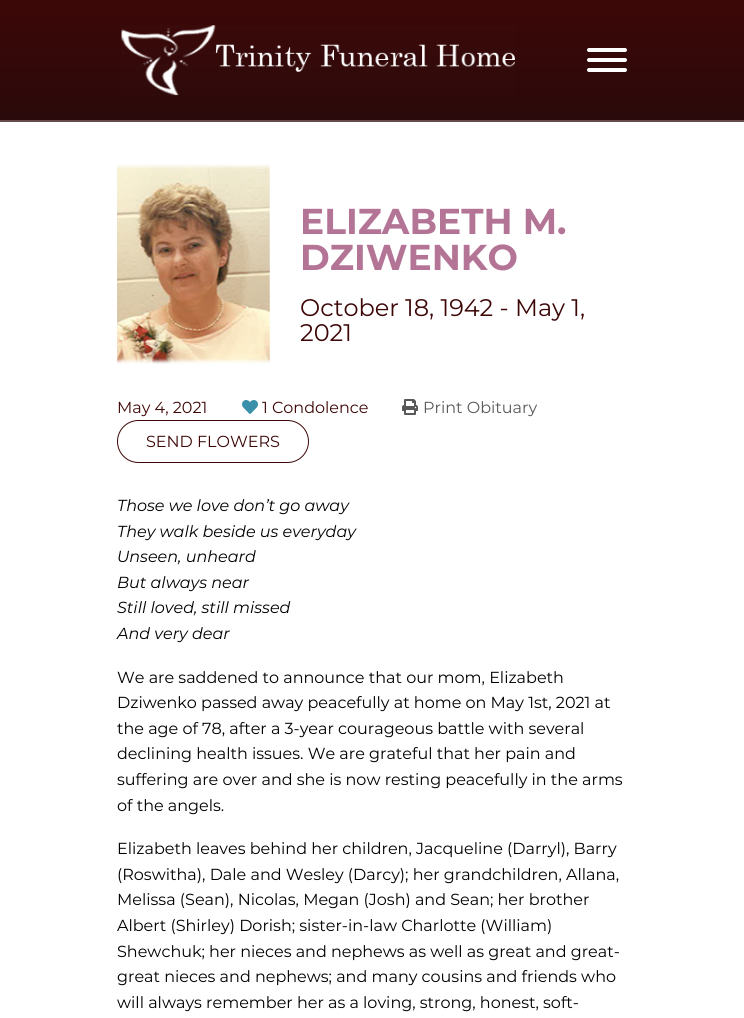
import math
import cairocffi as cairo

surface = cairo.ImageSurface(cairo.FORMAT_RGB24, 744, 1018)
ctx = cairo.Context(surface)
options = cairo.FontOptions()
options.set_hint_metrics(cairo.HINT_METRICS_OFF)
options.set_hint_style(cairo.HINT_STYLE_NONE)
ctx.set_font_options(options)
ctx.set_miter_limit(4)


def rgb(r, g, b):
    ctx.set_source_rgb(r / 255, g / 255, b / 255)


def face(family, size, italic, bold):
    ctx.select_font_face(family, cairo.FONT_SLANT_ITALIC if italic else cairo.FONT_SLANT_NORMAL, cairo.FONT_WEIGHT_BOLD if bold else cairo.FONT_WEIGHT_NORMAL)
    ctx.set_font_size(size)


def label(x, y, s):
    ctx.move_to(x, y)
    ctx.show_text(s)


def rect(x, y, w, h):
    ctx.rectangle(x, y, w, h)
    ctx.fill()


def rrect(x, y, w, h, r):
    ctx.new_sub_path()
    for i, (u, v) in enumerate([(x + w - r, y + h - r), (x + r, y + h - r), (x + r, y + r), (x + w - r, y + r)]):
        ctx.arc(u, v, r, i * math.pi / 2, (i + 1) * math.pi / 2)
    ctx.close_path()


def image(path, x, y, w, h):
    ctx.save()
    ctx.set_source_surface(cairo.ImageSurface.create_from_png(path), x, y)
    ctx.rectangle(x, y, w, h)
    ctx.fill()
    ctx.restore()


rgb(255, 255, 255)
ctx.paint()
gradient = cairo.LinearGradient(372, 0, 372, 122)
gradient.add_color_stop_rgba(0, 0.239, 0.027, 0.027, 1)
gradient.add_color_stop_rgba(1, 0.165, 0.039, 0.043, 1)
ctx.set_source(gradient)
rect(0, 0, 744, 120)
image('image0.png', 121, 25, 394, 71)
rgb(255, 255, 255)
rrect(587, 68, 40, 4, 2)
ctx.fill()
rrect(587, 48, 40, 4, 2)
ctx.fill()
rrect(587, 58, 40, 4, 2)
ctx.fill()
rgb(102, 75, 75)
rect(0, 120, 744, 2)
image('image1.png', 117, 164, 153, 201)
face('Montserrat', 36, 0, 1)
rgb(179, 116, 149)
label(300, 234, 'ELIZABETH M.')
label(300, 270, 'DZIWENKO')
face('Montserrat', 24, 0, 0)
rgb(61, 7, 7)
label(300, 316, 'October 18, 1942 - May 1,')
label(300, 341, '2021')
face('Montserrat', 16, 0, 0)
label(117, 413, 'May 4, 2021')
image('image2.png', 242, 400, 16, 14)
label(262, 413, '1 Condolence')
image('image3.png', 402, 399, 16, 16)
rgb(89, 89, 89)
label(423, 413, 'Print Obituary')
rrect(117.5, 420.5, 191, 42, 21)
rgb(61, 7, 7)
ctx.set_line_width(1)
ctx.stroke()
label(146, 447, 'SEND FLOWERS')
face('Montserrat', 16, 1, 0)
rgb(0, 0, 0)
label(117, 511, 'Those we love don’t go away')
label(117, 537, 'They walk beside us everyday')
label(117, 562, 'Unseen, unheard')
label(117, 588, 'But always near')
label(117, 613, 'Still loved, still missed')
label(117, 639, 'And very dear')
face('Montserrat', 16, 0, 0)
label(117, 683, 'We are saddened to announce that our mom, Elizabeth')
label(117, 708, 'Dziwenko passed away peacefully at home on May 1st, 2021 at')
label(117, 734, 'the age of 78, after a 3-year courageous battle with several')
label(117, 759, 'declining health issues. We are grateful that her pain and')
label(117, 785, 'suffering are over and she is now resting peacefully in the arms')
label(117, 811, 'of the angels.')
label(117, 854, 'Elizabeth leaves behind her children, Jacqueline (Darryl), Barry')
label(117, 880, '(Roswitha), Dale and Wesley (Darcy); her grandchildren, Allana,')
label(117, 905, 'Melissa (Sean), Nicolas, Megan (Josh) and Sean; her brother')
label(117, 931, 'Albert (Shirley) Dorish; sister-in-law Charlotte (William)')
label(117, 957, 'Shewchuk; her nieces and nephews as well as great and great-')
label(117, 982, 'great nieces and nephews; and many cousins and friends who')
label(117, 1008, 'will always remember her as a loving, strong, honest, soft-')
surface.write_to_png('render.png')
